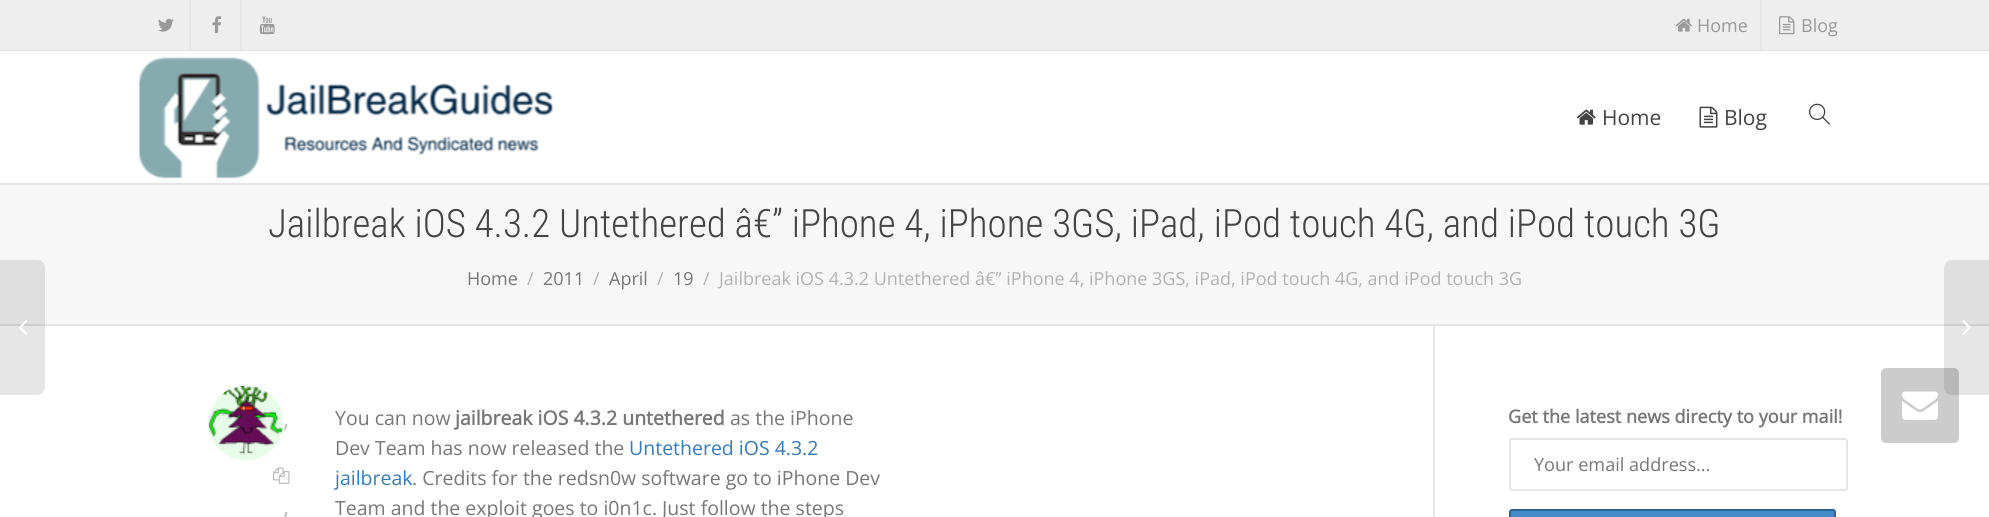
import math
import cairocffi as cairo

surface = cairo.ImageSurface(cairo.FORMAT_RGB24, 1989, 517)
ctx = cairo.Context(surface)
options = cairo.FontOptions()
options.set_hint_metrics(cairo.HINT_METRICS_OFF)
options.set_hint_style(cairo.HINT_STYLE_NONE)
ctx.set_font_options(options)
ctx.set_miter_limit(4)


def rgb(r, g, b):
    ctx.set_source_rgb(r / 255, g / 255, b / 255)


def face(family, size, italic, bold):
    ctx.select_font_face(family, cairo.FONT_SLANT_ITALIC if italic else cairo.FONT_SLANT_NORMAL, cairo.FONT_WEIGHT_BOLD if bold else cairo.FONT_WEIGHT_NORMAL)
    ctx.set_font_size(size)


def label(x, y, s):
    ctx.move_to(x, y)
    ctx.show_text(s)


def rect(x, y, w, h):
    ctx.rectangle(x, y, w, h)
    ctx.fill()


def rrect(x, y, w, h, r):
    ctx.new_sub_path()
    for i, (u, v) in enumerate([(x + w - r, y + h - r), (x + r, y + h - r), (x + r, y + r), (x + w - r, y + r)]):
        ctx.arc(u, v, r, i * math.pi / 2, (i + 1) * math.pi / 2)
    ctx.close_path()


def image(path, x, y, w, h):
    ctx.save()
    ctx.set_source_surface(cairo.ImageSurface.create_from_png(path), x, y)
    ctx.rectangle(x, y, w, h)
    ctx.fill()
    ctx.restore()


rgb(255, 255, 255)
ctx.paint()
rgb(238, 238, 238)
rect(0, 0, 1989, 50)
rgb(229, 229, 229)
rect(0, 50, 1989, 1)
rect(189, 0, 2, 50)
image('image0.png', 158, 18, 16, 14)
rect(240, 0, 2, 50)
image('image1.png', 212, 16, 10, 17)
image('image2.png', 259, 16, 16, 19)
rect(1760, 0, 2, 50)
image('image3.png', 1675, 18, 17, 14)
face('Open Sans', 18, 0, 0)
rgb(153, 153, 153)
label(1697, 32, 'Home')
image('image4.png', 1779, 16, 16, 19)
label(1801, 32, 'Blog')
rgb(229, 229, 229)
rect(0, 183, 1989, 2)
image('image5.png', 139, 56, 414, 123)
image('image6.png', 1576, 109, 20, 16)
face('Open Sans', 21, 0, 0)
rgb(68, 68, 68)
label(1602, 125, 'Home')
image('image7.png', 1699, 106, 19, 22)
label(1724, 125, 'Blog')
image('image8.png', 1808, 103, 22, 22)
rgb(247, 247, 247)
rect(0, 185, 1989, 139)
rgb(229, 229, 229)
rect(0, 324, 1989, 2)
face('Roboto Condensed Light', 39, 0, 0)
rgb(68, 68, 68)
label(268, 237, 'Jailbreak iOS 4.3.2 Untethered â€” iPhone 4, iPhone 3GS, iPad, iPod touch 4G, and iPod touch 3G')
face('Open Sans', 18, 0, 0)
rgb(119, 119, 119)
label(467, 285, 'Home')
rgb(179, 179, 179)
label(527, 285, '/')
rgb(119, 119, 119)
label(543, 285, '2011')
rgb(179, 179, 179)
label(593, 285, '/')
rgb(119, 119, 119)
label(609, 285, 'April')
rgb(179, 179, 179)
label(657, 285, '/')
rgb(119, 119, 119)
label(673, 285, '19')
rgb(179, 179, 179)
label(703, 285, '/')
label(719, 285, 'Jailbreak iOS 4.3.2 Untethered â€” iPhone 4, iPhone 3GS, iPad, iPod touch 4G, and iPod touch 3G')
rgb(229, 229, 229)
rect(1433, 326, 2, 191)
ctx.set_source_rgba(0, 0, 0, 0.1)
ctx.new_path()
ctx.move_to(-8, 260)
ctx.line_to(37, 260)
ctx.curve_to(41.5, 260, 45, 263.5, 45, 268)
ctx.line_to(45, 387)
ctx.curve_to(45, 391.5, 41.5, 395, 37, 395)
ctx.line_to(-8, 395)
ctx.close_path()
ctx.fill()
image('image9.png', 18, 320, 10, 15)
ctx.new_path()
ctx.move_to(1952, 260)
ctx.line_to(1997, 260)
ctx.line_to(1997, 395)
ctx.line_to(1952, 395)
ctx.curve_to(1947.5, 395, 1944, 391.5, 1944, 387)
ctx.line_to(1944, 268)
ctx.curve_to(1944, 263.5, 1947.5, 260, 1952, 260)
ctx.close_path()
ctx.fill()
image('image10.png', 1962, 320, 9, 15)
image('image11.png', 208, 385, 76, 76)
face('Open Sans', 24, 0, 0)
rgb(187, 187, 187)
label(283, 427, ',')
image('image12.png', 273, 467, 17, 17)
label(283, 515, ',')
face('Open Sans', 19.5, 0, 0)
rgb(119, 119, 119)
label(335, 425, 'You can now')
face('Open Sans', 19.5, 0, 1)
label(455, 425, 'jailbreak iOS 4.3.2 untethered')
face('Open Sans', 19.5, 0, 0)
label(730, 425, 'as the iPhone')
label(335, 455, 'Dev Team has now released the')
rgb(54, 123, 183)
label(629, 455, 'Untethered iOS 4.3.2')
label(335, 485, 'jailbreak')
rgb(119, 119, 119)
label(412, 485, '. Credits for the redsn0w software go to iPhone Dev')
label(335, 515, 'Team and the exploit goes to i0n1c. Just follow the steps')
face('Open Sans', 18.1, 0, 1)
label(1508, 423, 'Get the latest news directy to your mail!')
rrect(1510, 439, 337, 51, 2)
rgb(229, 229, 229)
ctx.stroke()
face('Open Sans', 18.1, 0, 0)
rgb(119, 119, 119)
label(1534, 471, 'Your email address...')
rgb(66, 139, 202)
rrect(1510, 510, 325, 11, 2)
ctx.fill_preserve()
rgb(42, 100, 150)
ctx.stroke()
ctx.set_source_rgba(0, 0, 0, 0.2)
rrect(1881, 368, 78, 75, 5)
ctx.fill()
image('image13.png', 1902, 391, 36, 29)
surface.write_to_png('render.png')
